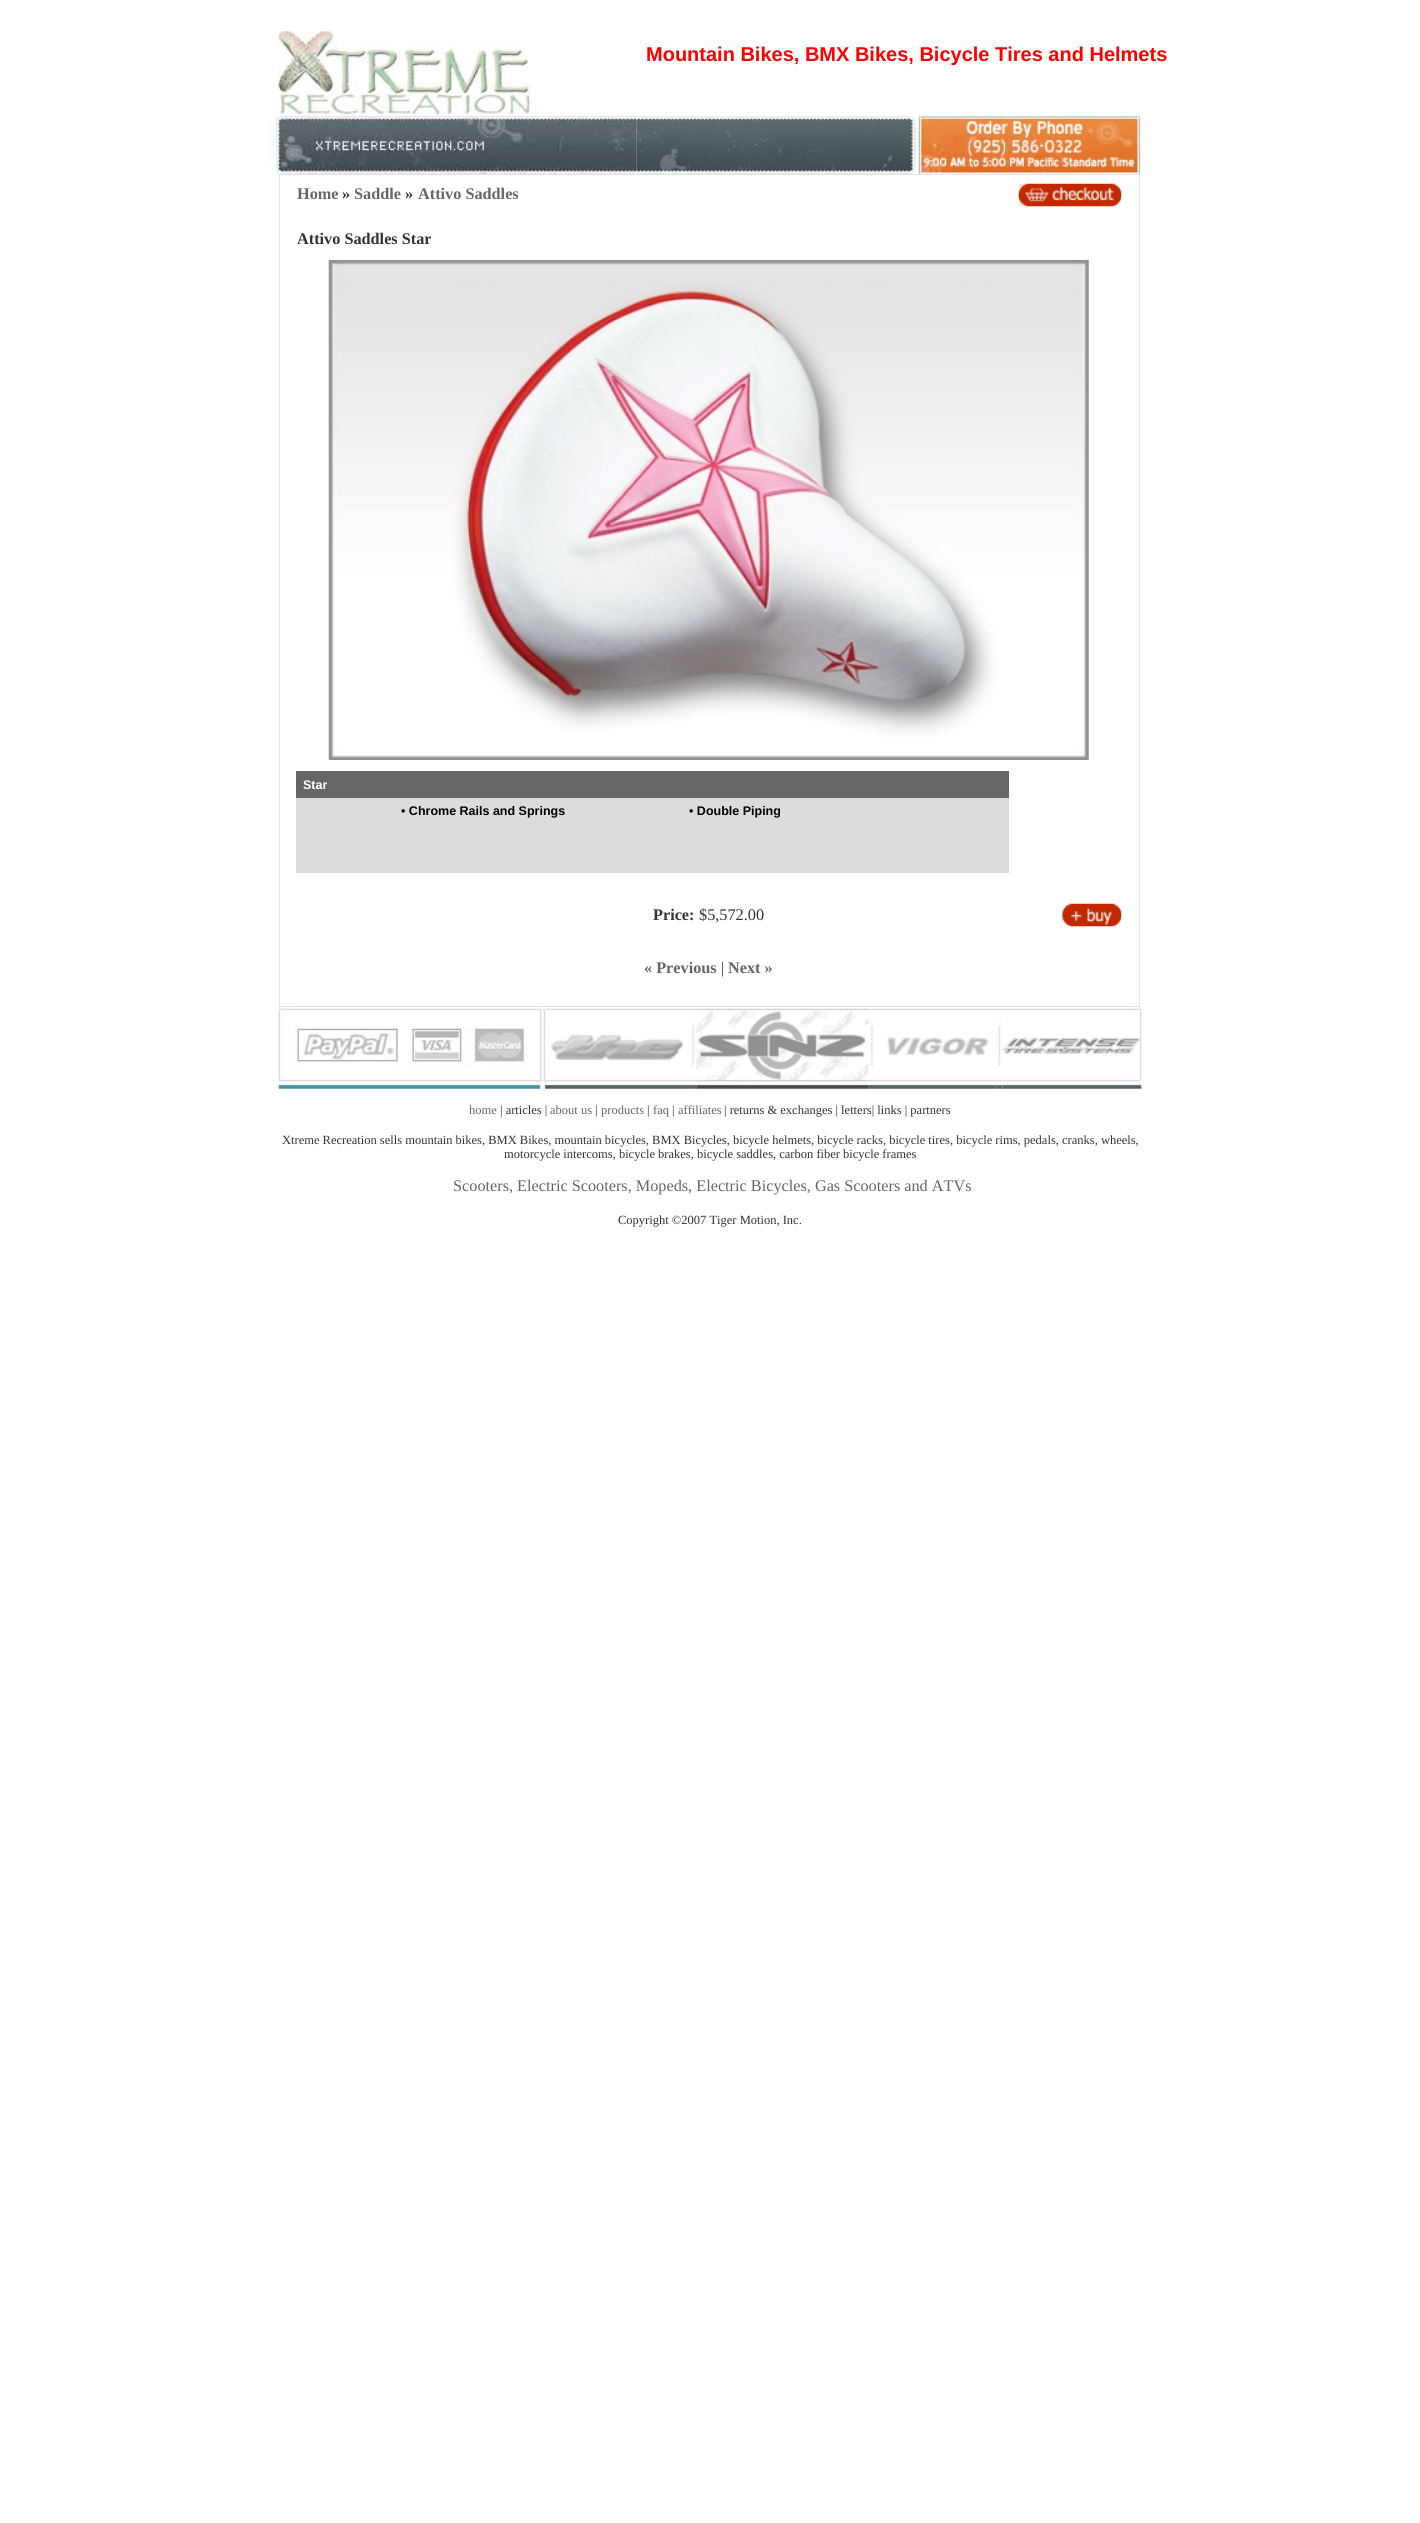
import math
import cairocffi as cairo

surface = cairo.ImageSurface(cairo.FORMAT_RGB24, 1420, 2523)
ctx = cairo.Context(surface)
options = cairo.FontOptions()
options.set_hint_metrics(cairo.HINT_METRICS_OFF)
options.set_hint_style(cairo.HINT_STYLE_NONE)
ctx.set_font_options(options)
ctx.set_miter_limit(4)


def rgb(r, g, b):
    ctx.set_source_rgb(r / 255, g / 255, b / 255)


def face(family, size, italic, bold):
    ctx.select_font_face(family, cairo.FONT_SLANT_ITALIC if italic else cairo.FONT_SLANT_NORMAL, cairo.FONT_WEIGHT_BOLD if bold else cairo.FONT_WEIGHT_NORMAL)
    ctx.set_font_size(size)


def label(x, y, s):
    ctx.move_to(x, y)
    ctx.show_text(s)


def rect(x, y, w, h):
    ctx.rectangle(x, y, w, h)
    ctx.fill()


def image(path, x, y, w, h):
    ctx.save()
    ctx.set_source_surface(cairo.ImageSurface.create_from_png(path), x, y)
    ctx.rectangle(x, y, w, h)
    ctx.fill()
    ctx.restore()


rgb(255, 255, 255)
ctx.paint()
image('image0.png', 277, 31, 268, 84)
face('Liberation Sans', 20, 0, 1)
rgb(255, 0, 0)
label(646, 61, 'Mountain Bikes, BMX Bikes, Bicycle Tires and Helmets')
image('image1.png', 269, 115, 368, 59)
image('image2.png', 636, 116, 280, 58)
image('image3.png', 917, 115, 224, 59)
rgb(229, 226, 230)
rect(279, 174, 861, 1)
rect(1139, 174, 1, 834)
rect(279, 1006, 861, 1)
rect(279, 174, 1, 834)
face('Liberation Serif', 16.25, 0, 1)
rgb(102, 102, 102)
label(297, 199, 'Home')
rgb(51, 51, 51)
label(342, 199, '»')
rgb(102, 102, 102)
label(354, 199, 'Saddle')
rgb(51, 51, 51)
label(405, 199, '»')
rgb(102, 102, 102)
label(418, 199, 'Attivo Saddles')
image('image4.png', 1018, 183, 104, 24)
rgb(51, 51, 51)
label(297, 244, 'Attivo Saddles Star')
image('image5.png', 328, 260, 761, 500)
rgb(102, 102, 102)
rect(296, 771, 713, 27)
face('Liberation Sans', 12.5, 0, 1)
rgb(255, 255, 255)
label(303, 789, 'Star')
rgb(220, 220, 220)
rect(296, 798, 713, 75)
rgb(0, 0, 0)
label(401, 815, '• Chrome Rails and Springs')
label(689, 815, '• Double Piping')
face('Liberation Serif', 16.25, 0, 1)
rgb(51, 51, 51)
label(653, 920, 'Price:')
face('Liberation Serif', 16.25, 0, 0)
label(699, 920, '$5,572.00')
image('image6.png', 1062, 903, 60, 24)
face('Liberation Serif', 16.25, 0, 1)
rgb(102, 102, 102)
label(644, 973, '« Previous')
face('Liberation Serif', 16.25, 0, 0)
rgb(51, 51, 51)
label(721, 973, '|')
face('Liberation Serif', 16.25, 0, 1)
rgb(102, 102, 102)
label(728, 973, 'Next »')
image('image7.png', 278, 1007, 265, 82)
image('image8.png', 542, 1008, 148, 81)
image('image9.png', 690, 1008, 7, 81)
image('image10.png', 696, 1008, 173, 81)
image('image11.png', 868, 1008, 7, 81)
image('image12.png', 875, 1008, 122, 81)
image('image13.png', 996, 1008, 7, 81)
image('image14.png', 1002, 1007, 141, 82)
face('Liberation Serif', 12.5, 0, 0)
label(469, 1114, 'home')
rgb(51, 51, 51)
label(500, 1114, '| articles |')
rgb(102, 102, 102)
label(550, 1114, 'about us')
rgb(51, 51, 51)
label(595, 1114, '|')
rgb(102, 102, 102)
label(601, 1114, 'products')
rgb(51, 51, 51)
label(647, 1114, '|')
rgb(102, 102, 102)
label(653, 1114, 'faq')
rgb(51, 51, 51)
label(672, 1114, '|')
rgb(102, 102, 102)
label(678, 1114, 'affiliates')
rgb(51, 51, 51)
label(724, 1114, '| returns & exchanges | letters| links | partners')
label(282, 1144, 'Xtreme Recreation sells mountain bikes, BMX Bikes, mountain bicycles, BMX Bicycles, bicycle helmets, bicycle racks, bicycle tires, bicycle rims, pedals, cranks, wheels,')
label(504, 1158, 'motorcycle intercoms, bicycle brakes, bicycle saddles, carbon fiber bicycle frames')
face('Liberation Serif', 16.25, 0, 0)
rgb(102, 102, 102)
label(453, 1191, 'Scooters, Electric Scooters, Mopeds, Electric Bicycles, Gas Scooters and ATVs')
face('Liberation Serif', 12.5, 0, 0)
rgb(51, 51, 51)
label(618, 1224, 'Copyright ©2007 Tiger Motion, Inc.')
surface.write_to_png('render.png')
